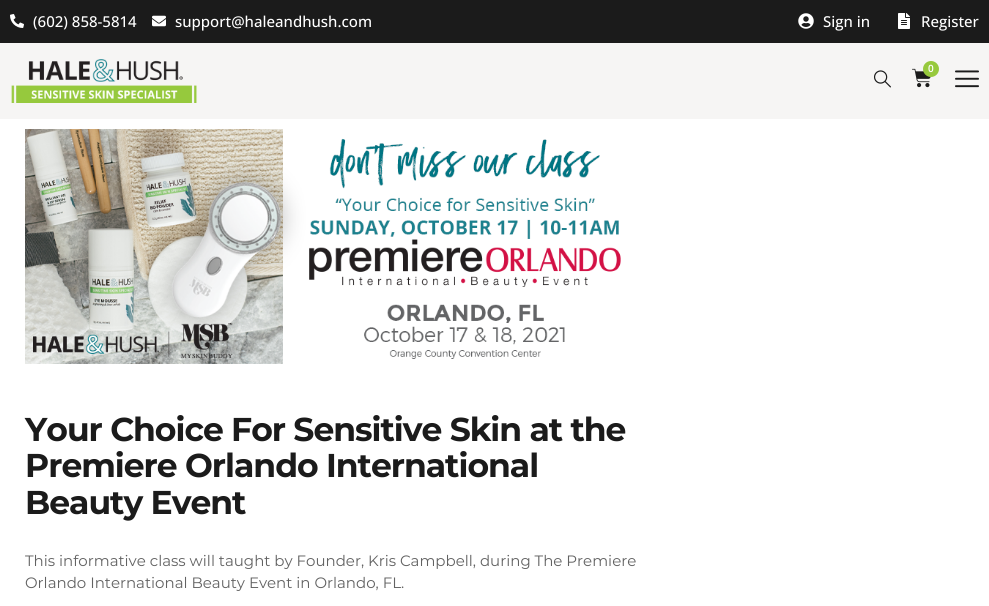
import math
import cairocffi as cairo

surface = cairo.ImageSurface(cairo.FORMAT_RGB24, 989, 606)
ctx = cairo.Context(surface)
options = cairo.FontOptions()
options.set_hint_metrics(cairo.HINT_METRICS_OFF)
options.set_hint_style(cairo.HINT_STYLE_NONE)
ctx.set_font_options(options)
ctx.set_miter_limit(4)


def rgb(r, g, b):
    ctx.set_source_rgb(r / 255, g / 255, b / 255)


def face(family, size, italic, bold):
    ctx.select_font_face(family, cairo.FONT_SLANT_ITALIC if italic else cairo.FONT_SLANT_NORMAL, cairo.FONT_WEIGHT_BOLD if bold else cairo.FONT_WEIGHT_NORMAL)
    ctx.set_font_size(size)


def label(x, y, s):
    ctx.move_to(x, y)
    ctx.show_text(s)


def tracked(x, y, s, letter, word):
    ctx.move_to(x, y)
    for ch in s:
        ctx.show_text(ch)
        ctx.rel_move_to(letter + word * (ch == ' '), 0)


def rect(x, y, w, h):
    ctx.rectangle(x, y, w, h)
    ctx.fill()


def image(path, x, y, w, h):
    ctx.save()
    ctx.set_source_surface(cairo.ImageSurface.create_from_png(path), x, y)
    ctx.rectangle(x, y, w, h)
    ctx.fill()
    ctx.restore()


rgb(255, 255, 255)
ctx.paint()
rgb(27, 27, 27)
rect(0, 0, 989, 43)
image('image0.png', 10, 14, 14, 14)
face('Open Sans Medium', 15, 0, 0)
rgb(255, 255, 255)
label(33, 27, '(602) 858-5814')
image('image1.png', 152, 15, 14, 12)
label(175, 27, 'support@haleandhush.com')
image('image2.png', 798, 13, 16, 16)
label(823, 27, 'Sign in')
image('image3.png', 898, 13, 12, 16)
label(921, 27, 'Register')
rgb(246, 245, 244)
rect(0, 43, 989, 76)
image('image4.png', 11, 59, 186, 44)
image('image5.png', 912, 68, 19, 20)
rgb(151, 201, 61)
ctx.arc(931, 69, 8, 0, 2 * math.pi)
ctx.fill()
face('Open Sans SemiBold', 10, 0, 0)
rgb(255, 255, 255)
label(928, 72, '0')
image('image6.png', 874, 70, 17, 18)
image('image7.png', 955, 70, 24, 18)
image('image8.png', 25, 129, 596, 235)
face('Montserrat', 33, 0, 1)
rgb(27, 27, 27)
tracked(25, 441, 'Your Choice For Sensitive Skin at the', -1, 0)
tracked(25, 477, 'Premiere Orlando International', -1, 0)
tracked(25, 514, 'Beauty Event', -1, 0)
face('Montserrat', 15, 0, 0)
rgb(98, 98, 98)
label(25, 566, 'This informative class will taught by Founder, Kris Campbell, during The Premiere')
label(25, 588, 'Orlando International Beauty Event in Orlando, FL.')
surface.write_to_png('render.png')
